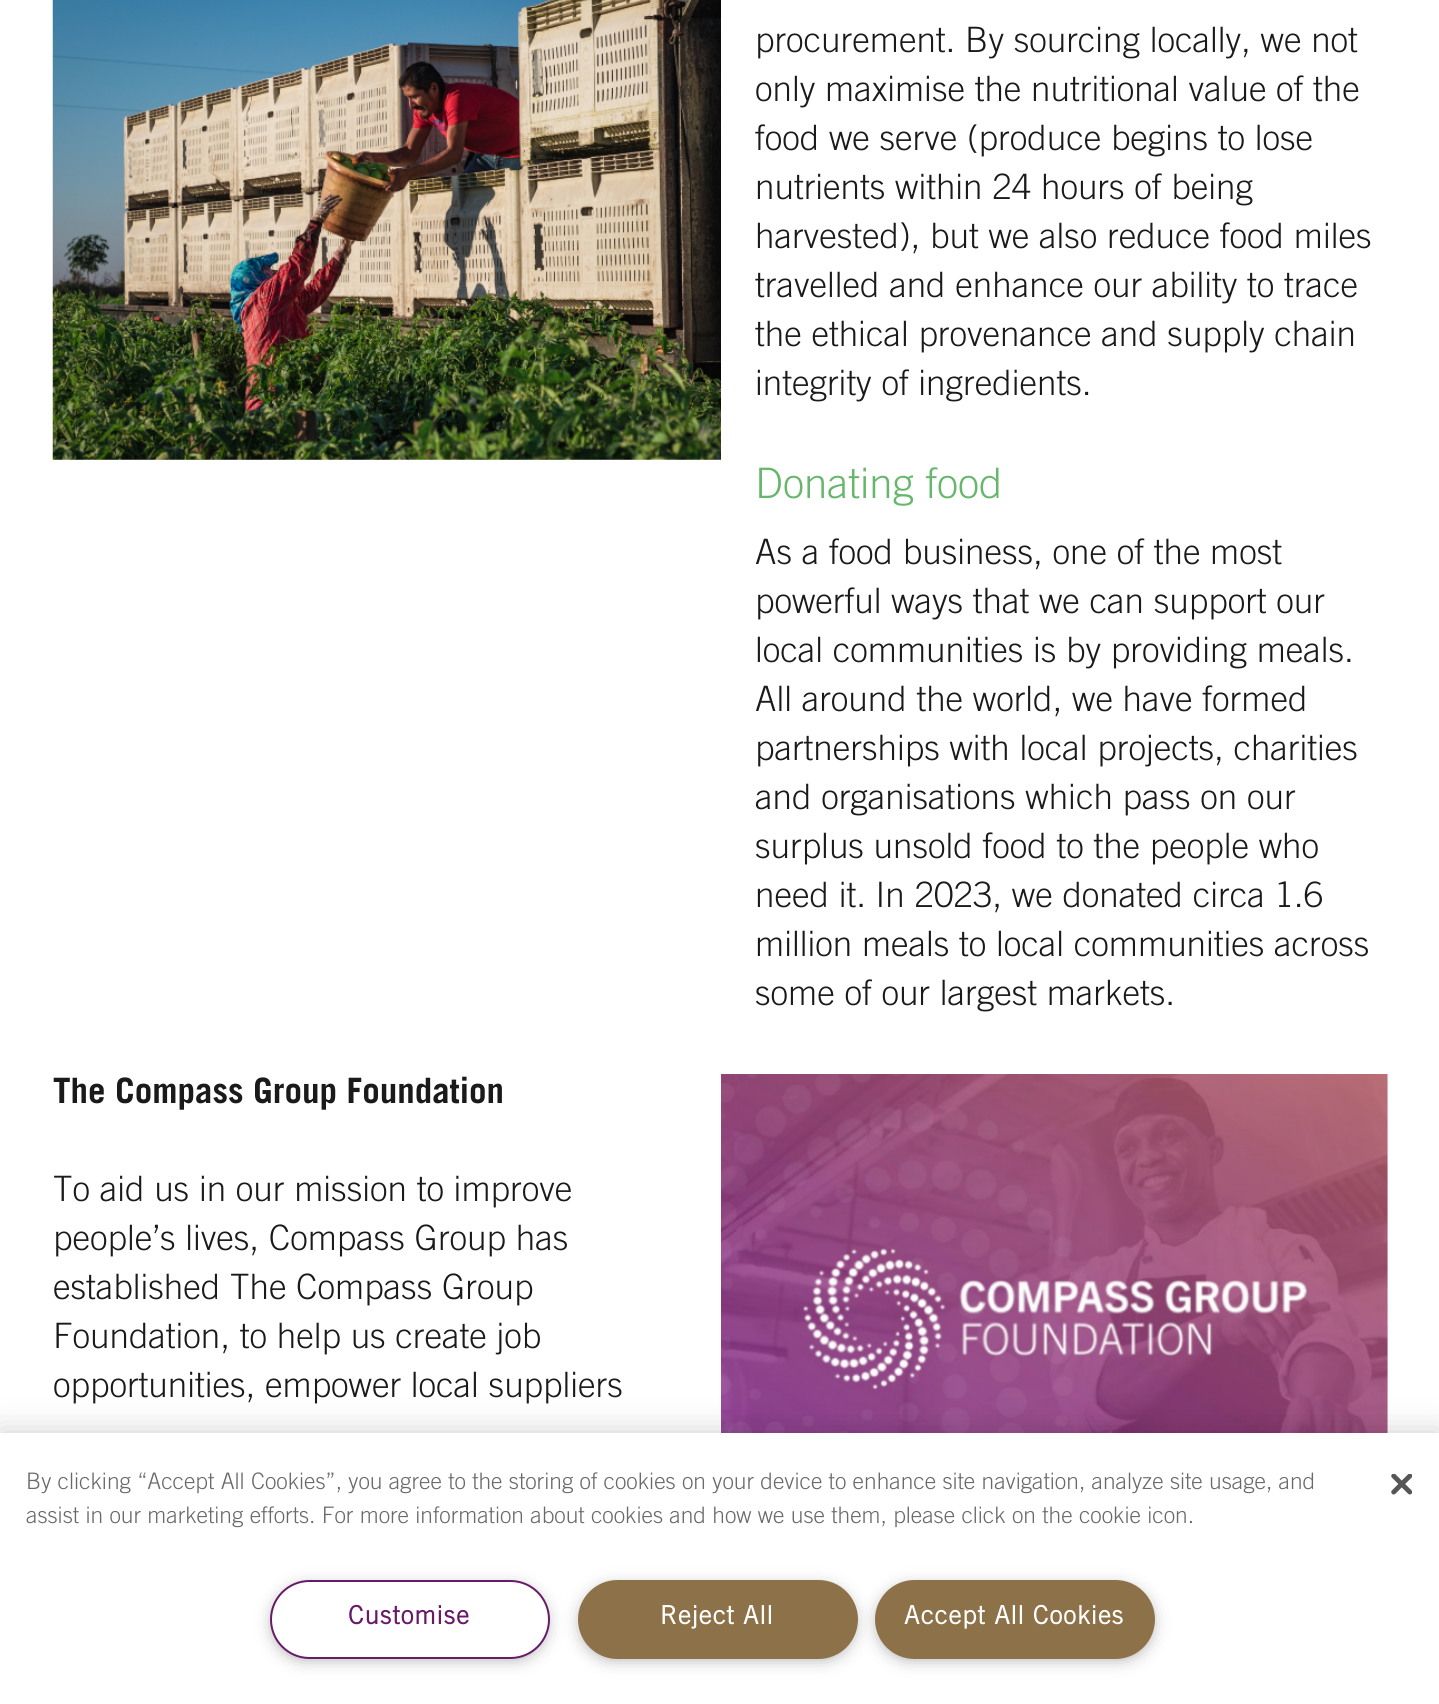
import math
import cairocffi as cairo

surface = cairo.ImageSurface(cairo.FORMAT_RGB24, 1439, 1704)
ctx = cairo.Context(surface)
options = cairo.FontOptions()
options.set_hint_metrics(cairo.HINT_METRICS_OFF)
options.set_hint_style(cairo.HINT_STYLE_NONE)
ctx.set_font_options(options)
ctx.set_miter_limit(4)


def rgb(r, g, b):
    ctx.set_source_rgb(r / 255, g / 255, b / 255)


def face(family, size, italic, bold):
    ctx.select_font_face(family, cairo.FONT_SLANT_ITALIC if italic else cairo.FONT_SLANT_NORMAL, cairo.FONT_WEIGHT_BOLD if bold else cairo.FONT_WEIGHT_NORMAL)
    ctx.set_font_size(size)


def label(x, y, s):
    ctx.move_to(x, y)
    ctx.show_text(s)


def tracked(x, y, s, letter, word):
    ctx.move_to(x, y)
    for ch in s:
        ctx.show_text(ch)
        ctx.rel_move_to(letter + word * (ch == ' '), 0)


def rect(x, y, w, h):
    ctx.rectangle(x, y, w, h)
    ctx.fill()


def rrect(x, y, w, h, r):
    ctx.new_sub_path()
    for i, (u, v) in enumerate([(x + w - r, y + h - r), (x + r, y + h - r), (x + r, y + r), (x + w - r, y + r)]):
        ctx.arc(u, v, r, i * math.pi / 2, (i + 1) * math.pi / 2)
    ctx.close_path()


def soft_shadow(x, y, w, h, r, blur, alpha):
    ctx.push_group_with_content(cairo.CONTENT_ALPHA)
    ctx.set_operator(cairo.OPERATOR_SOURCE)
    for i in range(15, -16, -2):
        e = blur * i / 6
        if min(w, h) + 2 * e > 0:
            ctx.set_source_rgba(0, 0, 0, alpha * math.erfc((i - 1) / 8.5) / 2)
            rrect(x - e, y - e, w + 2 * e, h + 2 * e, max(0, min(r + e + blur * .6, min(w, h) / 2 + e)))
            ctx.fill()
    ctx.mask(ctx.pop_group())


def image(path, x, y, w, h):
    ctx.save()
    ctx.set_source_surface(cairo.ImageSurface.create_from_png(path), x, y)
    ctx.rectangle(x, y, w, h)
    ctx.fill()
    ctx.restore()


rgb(255, 255, 255)
ctx.paint()
image('image0.png', 52, 0, 669, 460)
face('Trade Gothic Light', 35, 0, 0)
rgb(26, 26, 26)
label(755, 52, 'procurement. By sourcing locally, we not')
label(755, 101, 'only maximise the nutritional value of the')
label(755, 150, 'food we serve (produce begins to lose')
label(755, 199, 'nutrients within 24 hours of being')
label(755, 248, 'harvested), but we also reduce food miles')
label(755, 297, 'travelled and enhance our ability to trace')
label(755, 346, 'the ethical provenance and supply chain')
label(755, 395, 'integrity of ingredients.')
face('Trade Gothic Light', 42, 0, 0)
rgb(102, 182, 107)
label(755, 498, 'Donating food')
face('Trade Gothic Light', 35, 0, 0)
rgb(26, 26, 26)
label(755, 564, 'As a food business, one of the most')
label(755, 613, 'powerful ways that we can support our')
label(755, 662, 'local communities is by providing meals.')
label(755, 711, 'All around the world, we have formed')
label(755, 760, 'partnerships with local projects, charities')
label(755, 809, 'and organisations which pass on our')
label(755, 858, 'surplus unsold food to the people who')
label(755, 907, 'need it. In 2023, we donated circa 1.6')
label(755, 956, 'million meals to local communities across')
label(755, 1005, 'some of our largest markets.')
face('Trade Gothic', 35, 0, 1)
label(53, 1103, 'The Compass Group Foundation')
face('Trade Gothic Light', 35, 0, 0)
label(53, 1201, 'To aid us in our mission to improve')
label(53, 1250, 'people’s lives, Compass Group has')
label(53, 1299, 'established The Compass Group')
label(53, 1348, 'Foundation, to help us create job')
label(53, 1397, 'opportunities, empower local suppliers')
image('image1.png', 721, 1074, 667, 359)
rgb(0, 0, 0)
soft_shadow(0, 1433, 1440, 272, 0, 16, 0.2)
rgb(255, 255, 255)
rect(0, 1433, 1439, 271)
face('Trade Gothic Light', 22.75, 0, 0)
rgb(105, 105, 105)
label(26, 1489, 'By clicking “Accept All Cookies”, you agree to the storing of cookies on your device to enhance site navigation, analyze site usage, and')
label(26, 1523, 'assist in our marketing efforts. For more information about cookies and how we use them, please click on the cookie icon.')
rgb(153, 153, 153)
soft_shadow(275, 1589, 269, 68, 34, 9, 1)
rgb(255, 255, 255)
rrect(271, 1581, 278, 77, 38.5)
ctx.fill_preserve()
rgb(103, 27, 103)
ctx.stroke()
face('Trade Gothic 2', 25.25, 0, 1)
tracked(348, 1624, 'Customise', 1.25, 0)
rgb(153, 153, 153)
soft_shadow(880, 1589, 270, 68, 34, 9, 1)
rgb(141, 114, 73)
rrect(876, 1581, 278, 77, 38.5)
ctx.fill_preserve()
ctx.stroke()
rgb(153, 153, 153)
soft_shadow(583, 1589, 269, 68, 34, 9, 1)
rgb(141, 114, 73)
rrect(579, 1581, 278, 77, 38.5)
ctx.fill_preserve()
ctx.stroke()
rgb(255, 255, 255)
tracked(660, 1624, 'Reject All', 1.25, 0)
tracked(904, 1624, 'Accept All Cookies', 1.25, 0)
image('image2.png', 1391, 1474, 21, 21)
surface.write_to_png('render.png')
